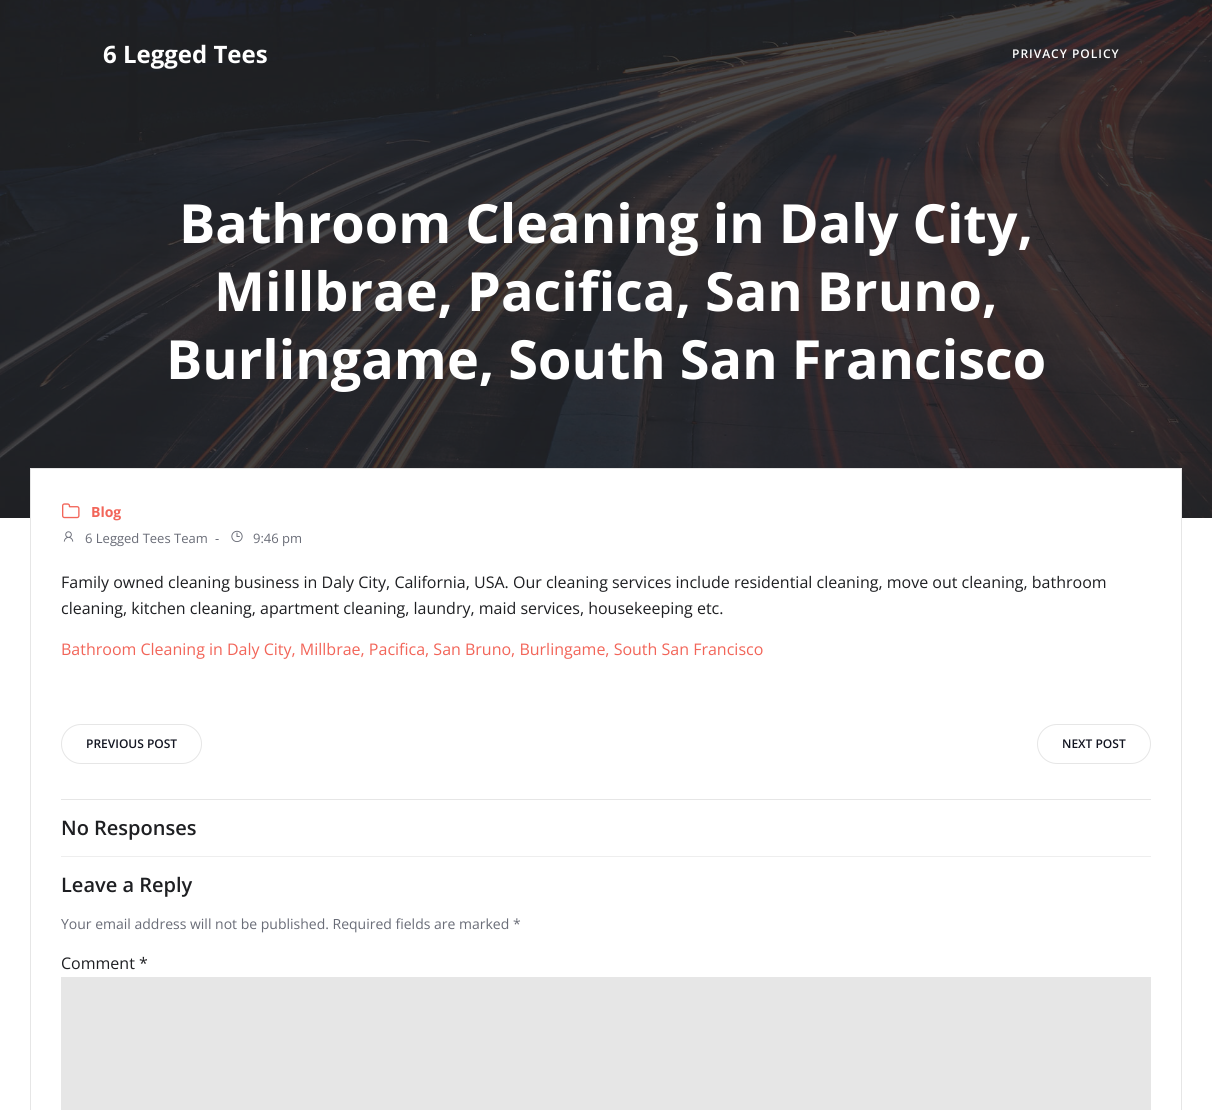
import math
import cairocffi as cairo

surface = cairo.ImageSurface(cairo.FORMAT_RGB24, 1212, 1110)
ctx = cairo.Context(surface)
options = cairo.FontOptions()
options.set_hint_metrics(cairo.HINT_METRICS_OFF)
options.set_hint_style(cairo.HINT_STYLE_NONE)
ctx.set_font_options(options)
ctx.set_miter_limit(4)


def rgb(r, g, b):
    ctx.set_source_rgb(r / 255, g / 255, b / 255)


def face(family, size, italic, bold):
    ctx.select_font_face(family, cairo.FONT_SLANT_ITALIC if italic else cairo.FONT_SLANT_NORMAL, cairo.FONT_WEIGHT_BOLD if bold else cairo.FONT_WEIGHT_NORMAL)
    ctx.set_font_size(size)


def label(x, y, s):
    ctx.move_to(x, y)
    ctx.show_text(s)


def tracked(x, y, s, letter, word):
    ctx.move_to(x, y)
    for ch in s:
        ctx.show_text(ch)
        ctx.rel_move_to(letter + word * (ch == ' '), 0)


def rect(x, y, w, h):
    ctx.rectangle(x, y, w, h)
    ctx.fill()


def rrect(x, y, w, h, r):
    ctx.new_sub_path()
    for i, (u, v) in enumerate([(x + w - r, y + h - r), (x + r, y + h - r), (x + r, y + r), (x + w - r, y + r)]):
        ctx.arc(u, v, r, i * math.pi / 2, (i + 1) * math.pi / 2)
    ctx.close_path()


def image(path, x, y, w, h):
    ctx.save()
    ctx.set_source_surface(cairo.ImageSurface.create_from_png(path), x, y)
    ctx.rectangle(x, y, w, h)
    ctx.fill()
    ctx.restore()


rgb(255, 255, 255)
ctx.paint()
image('image0.png', 0, 0, 1212, 518)
face('Open Sans', 24, 0, 1)
rgb(255, 255, 255)
label(103, 63, '6 Legged Tees')
face('Open Sans SemiBold', 12, 0, 0)
tracked(1012, 58, 'PRIVACY POLICY', 1, 0)
face('Open Sans', 54, 0, 1)
label(179, 243, 'Bathroom Cleaning in Daly City,')
label(214, 311, 'Millbrae, Pacifica, San Bruno,')
label(166, 379, 'Burlingame, South San Francisco')
rect(31, 469, 1150, 49)
rgb(230, 230, 230)
rect(30, 468, 1152, 1)
rect(1181, 468, 1, 642)
rect(30, 468, 1, 642)
image('image1.png', 62, 503, 18, 16)
face('Open Sans', 14, 0, 1)
rgb(242, 101, 89)
label(91, 517, 'Blog')
image('image2.png', 63, 531, 11, 11)
face('Open Sans', 13, 0, 0)
rgb(105, 108, 119)
label(85, 543, '6 Legged Tees Team')
label(215, 543, '-')
image('image3.png', 231, 530, 12, 13)
label(253, 543, '9:46 pm')
face('Open Sans', 16, 0, 0)
rgb(30, 31, 34)
label(61, 588, 'Family owned cleaning business in Daly City, California, USA. Our cleaning services include residential cleaning, move out cleaning, bathroom')
label(61, 614, 'cleaning, kitchen cleaning, apartment cleaning, laundry, maid services, housekeeping etc.')
rgb(242, 101, 89)
label(61, 655, 'Bathroom Cleaning in Daly City, Millbrae, Pacifica, San Bruno, Burlingame, South San Francisco')
rgb(230, 230, 230)
rect(61, 799, 1090, 1)
rrect(61.5, 724.5, 140, 39, 19.5)
ctx.set_line_width(1)
ctx.stroke()
face('Open Sans SemiBold', 12, 0, 0)
rgb(19, 22, 34)
label(86, 748, 'PREVIOUS POST')
rrect(1037.5, 724.5, 113, 39, 19.5)
rgb(230, 230, 230)
ctx.stroke()
rgb(19, 22, 34)
label(1062, 748, 'NEXT POST')
face('Open Sans SemiBold', 20, 0, 0)
rgb(30, 31, 34)
label(61, 835, 'No Responses')
rgb(238, 238, 238)
rect(61, 856, 1090, 1)
rgb(30, 31, 34)
label(61, 892, 'Leave a Reply')
face('Open Sans', 14, 0, 0)
rgb(105, 108, 119)
label(61, 929, 'Your email address will not be published. Required fields are marked *')
face('Open Sans', 16, 0, 0)
rgb(30, 31, 34)
label(61, 969, 'Comment *')
rgb(230, 230, 230)
rect(61, 977, 1090, 133)
surface.write_to_png('render.png')
